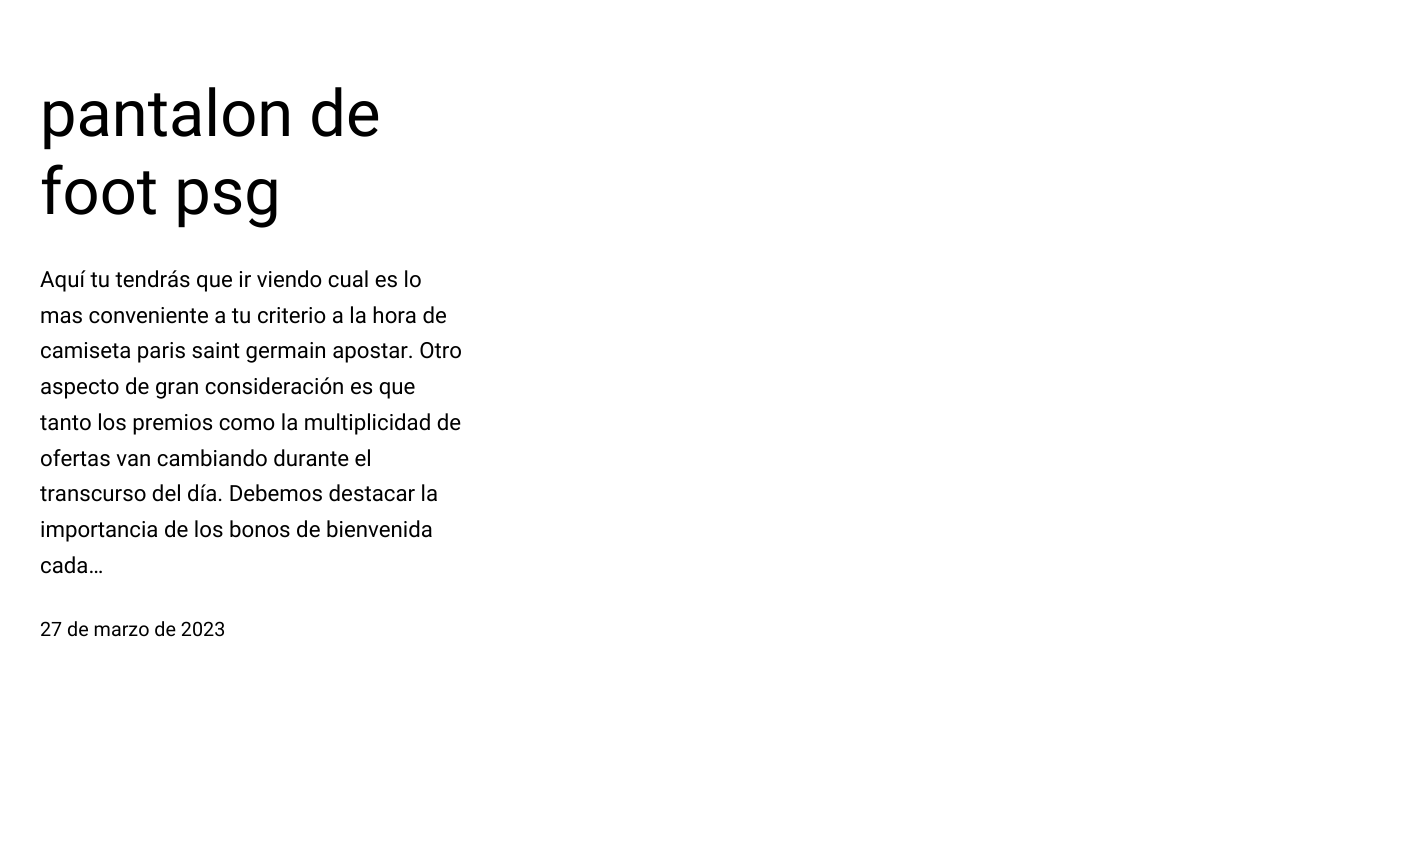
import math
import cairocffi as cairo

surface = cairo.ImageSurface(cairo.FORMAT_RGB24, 1414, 861)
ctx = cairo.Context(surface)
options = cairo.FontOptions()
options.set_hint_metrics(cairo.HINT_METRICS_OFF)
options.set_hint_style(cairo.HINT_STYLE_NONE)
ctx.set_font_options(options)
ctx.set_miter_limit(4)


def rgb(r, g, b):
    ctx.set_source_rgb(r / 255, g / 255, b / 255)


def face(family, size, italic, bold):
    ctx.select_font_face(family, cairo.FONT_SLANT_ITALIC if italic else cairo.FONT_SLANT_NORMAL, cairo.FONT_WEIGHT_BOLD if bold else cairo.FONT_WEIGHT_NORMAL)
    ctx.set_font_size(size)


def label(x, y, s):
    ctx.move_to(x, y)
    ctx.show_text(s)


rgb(255, 255, 255)
ctx.paint()
face('Roboto', 65, 0, 0)
rgb(0, 0, 0)
label(40, 136, 'pantalon de')
label(40, 214, 'foot psg')
face('Roboto', 22.25, 0, 0)
label(40, 287, 'Aquí tu tendrás que ir viendo cual es lo')
label(40, 323, 'mas conveniente a tu criterio a la hora de')
label(40, 358, 'camiseta paris saint germain apostar. Otro')
label(40, 394, 'aspecto de gran consideración es que')
label(40, 430, 'tanto los premios como la multiplicidad de')
label(40, 466, 'ofertas van cambiando durante el')
label(40, 501, 'transcurso del día. Debemos destacar la')
label(40, 537, 'importancia de los bonos de bienvenida')
label(40, 573, 'cada…')
face('Roboto', 19.75, 0, 0)
label(40, 636, '27 de marzo de 2023')
surface.write_to_png('render.png')
